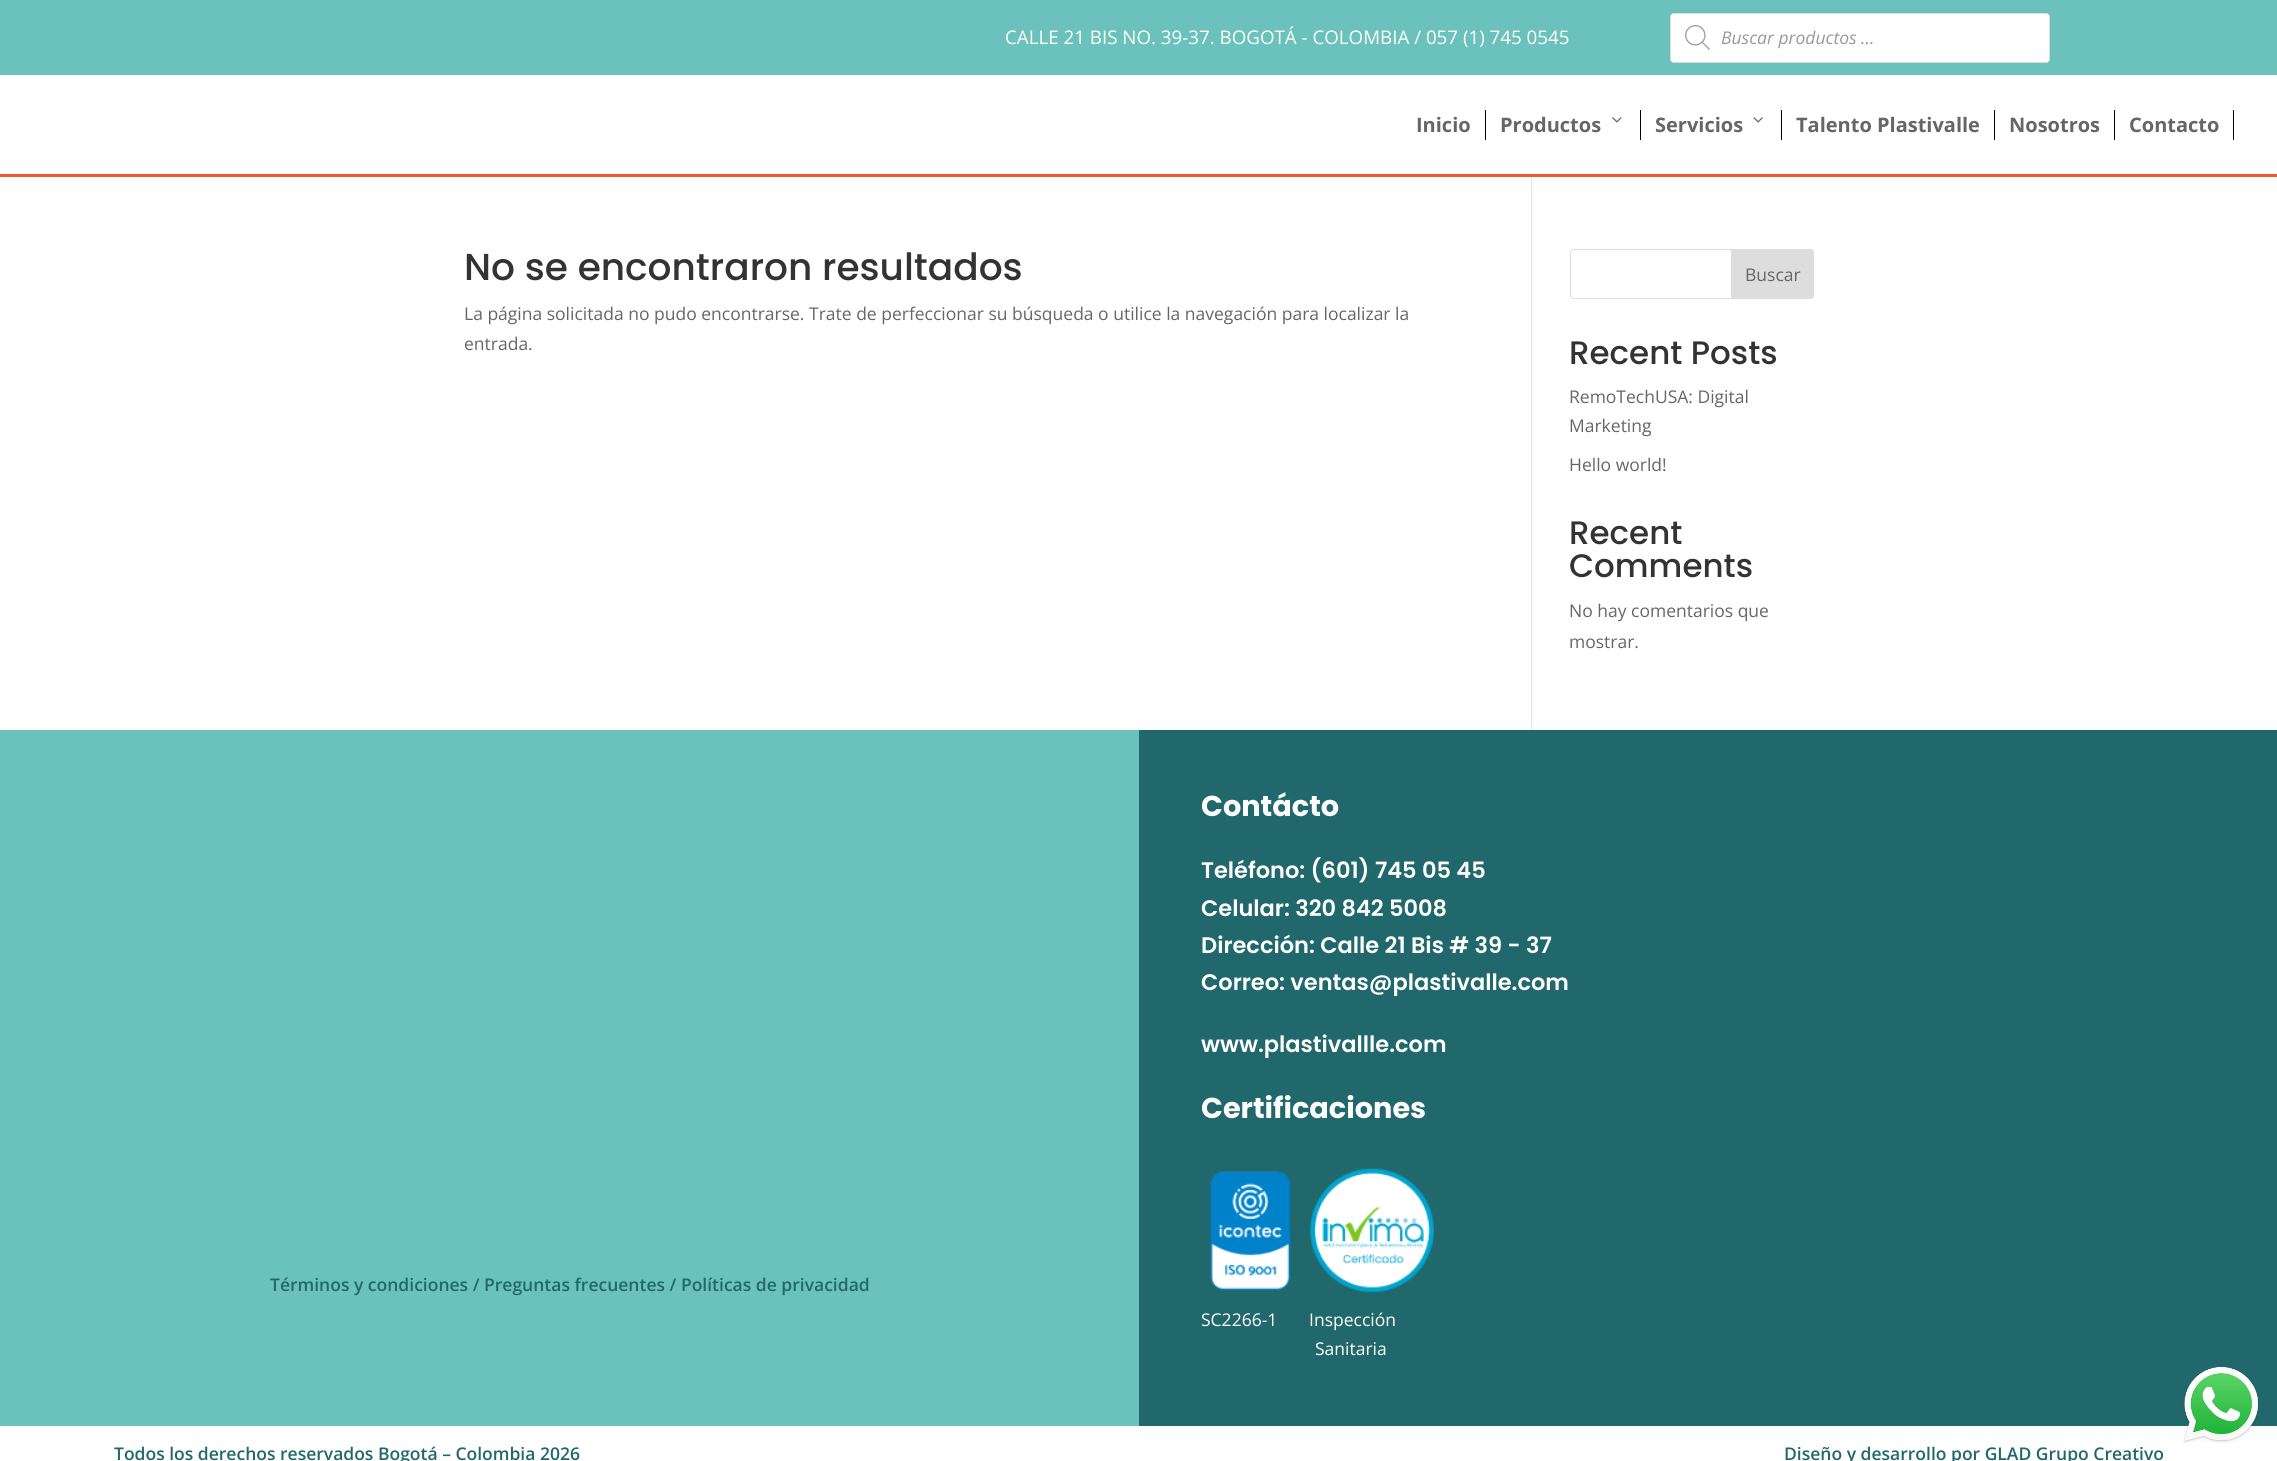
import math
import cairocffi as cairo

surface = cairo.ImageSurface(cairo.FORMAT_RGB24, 2277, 1461)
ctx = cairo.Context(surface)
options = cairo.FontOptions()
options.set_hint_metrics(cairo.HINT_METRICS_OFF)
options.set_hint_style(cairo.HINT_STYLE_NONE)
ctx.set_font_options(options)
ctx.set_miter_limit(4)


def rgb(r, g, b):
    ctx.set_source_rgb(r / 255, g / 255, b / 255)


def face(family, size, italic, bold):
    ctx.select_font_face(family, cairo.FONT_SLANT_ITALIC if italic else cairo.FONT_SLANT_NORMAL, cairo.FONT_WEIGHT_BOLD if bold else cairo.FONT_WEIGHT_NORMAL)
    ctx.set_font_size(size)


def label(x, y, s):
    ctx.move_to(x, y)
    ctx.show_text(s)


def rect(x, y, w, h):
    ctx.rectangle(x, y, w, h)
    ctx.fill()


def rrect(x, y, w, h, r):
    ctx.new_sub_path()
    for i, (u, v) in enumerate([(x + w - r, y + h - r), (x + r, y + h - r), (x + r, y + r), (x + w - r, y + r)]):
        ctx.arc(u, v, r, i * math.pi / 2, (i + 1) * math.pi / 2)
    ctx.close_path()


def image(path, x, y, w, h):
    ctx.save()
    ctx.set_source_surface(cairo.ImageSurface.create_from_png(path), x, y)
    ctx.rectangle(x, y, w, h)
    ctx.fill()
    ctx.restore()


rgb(255, 255, 255)
ctx.paint()
rgb(107, 193, 188)
rect(0, 0, 2277, 75)
face('Open Sans', 18.75, 0, 0)
rgb(255, 255, 255)
label(1005, 44, 'CALLE 21 BIS NO. 39-37. BOGOTÁ - COLOMBIA / 057 (1) 745 0545')
rrect(1670.5, 13.5, 379, 49, 3.5)
ctx.fill_preserve()
rgb(221, 221, 221)
ctx.set_line_width(1)
ctx.stroke()
image('image0.png', 1685, 25, 25, 25)
face('Open Sans', 17.5, 1, 0)
rgb(153, 153, 153)
label(1721, 44, 'Buscar productos ...')
rgb(226, 226, 226)
rect(1531, 176, 1, 554)
rgb(241, 90, 36)
rect(0, 174, 2277, 3)
rgb(0, 0, 0)
rect(1485, 110, 1, 30)
face('Open Sans', 20, 0, 1)
rgb(102, 102, 102)
label(1416, 132, 'Inicio')
rgb(0, 0, 0)
rect(1640, 110, 1, 30)
rgb(102, 102, 102)
label(1500, 132, 'Productos')
image('image1.png', 1612, 117, 10, 6)
rgb(0, 0, 0)
rect(1781, 110, 1, 30)
rgb(102, 102, 102)
label(1655, 132, 'Servicios')
image('image2.png', 1753, 117, 10, 6)
rgb(0, 0, 0)
rect(1994, 110, 1, 30)
rgb(102, 102, 102)
label(1796, 132, 'Talento Plastivalle')
rgb(0, 0, 0)
rect(2114, 110, 1, 30)
rgb(102, 102, 102)
label(2009, 132, 'Nosotros')
rgb(0, 0, 0)
rect(2233, 110, 1, 30)
rgb(102, 102, 102)
label(2129, 132, 'Contacto')
rgb(33, 104, 108)
rect(1139, 730, 1138, 696)
image('image3.png', 2183, 1367, 76, 76)
face('Poppins Medium', 37.5, 0, 0)
rgb(51, 51, 51)
label(464, 280, 'No se encontraron resultados')
face('Open Sans', 17.5, 0, 0)
rgb(102, 102, 102)
label(464, 320, 'La página solicitada no pudo encontrarse. Trate de perfeccionar su búsqueda o utilice la navegación para localizar la')
label(464, 350, 'entrada.')
rrect(1570.5, 249.5, 243, 49, 3.5)
rgb(221, 221, 221)
ctx.stroke()
ctx.new_path()
ctx.move_to(1731.5, 249.5)
ctx.line_to(1810, 249.5)
ctx.curve_to(1812, 249.5, 1813.5, 251, 1813.5, 253)
ctx.line_to(1813.5, 295)
ctx.curve_to(1813.5, 297, 1812, 298.5, 1810, 298.5)
ctx.line_to(1731.5, 298.5)
ctx.close_path()
ctx.fill_preserve()
ctx.stroke()
rgb(102, 102, 102)
label(1745, 281, 'Buscar')
face('Poppins Medium', 32.5, 0, 0)
rgb(51, 51, 51)
label(1569, 364, 'Recent Posts')
face('Open Sans', 17.5, 0, 0)
rgb(102, 102, 102)
label(1569, 403, 'RemoTechUSA: Digital')
label(1569, 432, 'Marketing')
label(1569, 471, 'Hello world!')
face('Poppins Medium', 32.5, 0, 0)
rgb(51, 51, 51)
label(1569, 544, 'Recent')
label(1569, 577, 'Comments')
face('Open Sans', 17.5, 0, 0)
rgb(102, 102, 102)
label(1569, 617, 'No hay comentarios que')
label(1569, 648, 'mostrar.')
rgb(107, 193, 188)
rect(0, 730, 1139, 696)
face('Open Sans SemiBold', 17.5, 0, 0)
rgb(33, 104, 108)
label(270, 1291, 'Términos y condiciones / Preguntas frecuentes / Políticas de privacidad')
face('Poppins', 28.75, 0, 1)
rgb(255, 255, 255)
label(1201, 816, 'Contácto')
face('Poppins SemiBold', 22.5, 0, 0)
label(1201, 878, 'Teléfono: (601) 745 05 45')
label(1201, 916, 'Celular: 320 842 5008')
label(1201, 953, 'Dirección: Calle 21 Bis # 39 - 37')
label(1201, 990, 'Correo: ventas@plastivalle.com')
label(1201, 1052, 'www.plastivallle.com')
face('Poppins', 28.75, 0, 1)
label(1201, 1118, 'Certificaciones')
image('image4.png', 1210, 1171, 81, 120)
image('image5.png', 1309, 1168, 125, 125)
face('Open Sans', 17.5, 0, 0)
label(1201, 1326, 'SC2266-1       Inspección')
label(1315, 1355, 'Sanitaria')
face('Open Sans SemiBold', 17.5, 0, 0)
rgb(33, 104, 108)
label(114, 1460, 'Todos los derechos reservados Bogotá – Colombia 2026')
label(1784, 1460, 'Diseño y desarrollo por GLAD Grupo Creativo')
surface.write_to_png('render.png')
